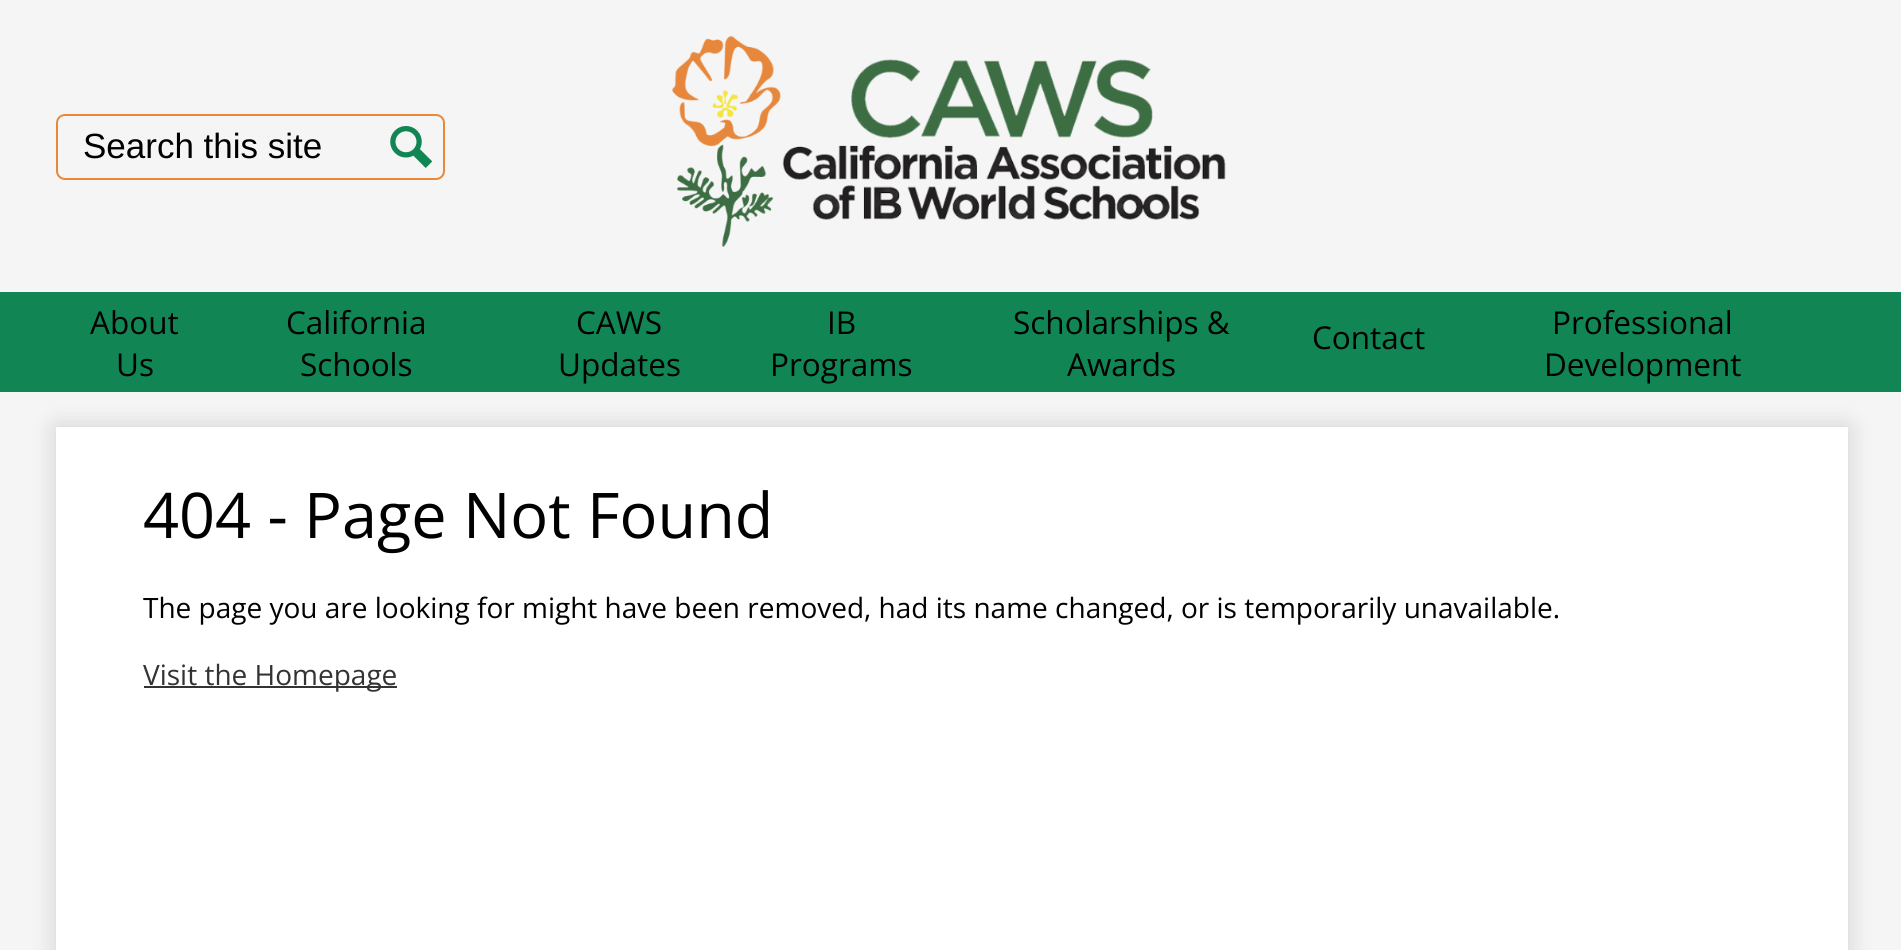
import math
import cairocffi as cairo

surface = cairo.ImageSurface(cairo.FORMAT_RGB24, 1901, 950)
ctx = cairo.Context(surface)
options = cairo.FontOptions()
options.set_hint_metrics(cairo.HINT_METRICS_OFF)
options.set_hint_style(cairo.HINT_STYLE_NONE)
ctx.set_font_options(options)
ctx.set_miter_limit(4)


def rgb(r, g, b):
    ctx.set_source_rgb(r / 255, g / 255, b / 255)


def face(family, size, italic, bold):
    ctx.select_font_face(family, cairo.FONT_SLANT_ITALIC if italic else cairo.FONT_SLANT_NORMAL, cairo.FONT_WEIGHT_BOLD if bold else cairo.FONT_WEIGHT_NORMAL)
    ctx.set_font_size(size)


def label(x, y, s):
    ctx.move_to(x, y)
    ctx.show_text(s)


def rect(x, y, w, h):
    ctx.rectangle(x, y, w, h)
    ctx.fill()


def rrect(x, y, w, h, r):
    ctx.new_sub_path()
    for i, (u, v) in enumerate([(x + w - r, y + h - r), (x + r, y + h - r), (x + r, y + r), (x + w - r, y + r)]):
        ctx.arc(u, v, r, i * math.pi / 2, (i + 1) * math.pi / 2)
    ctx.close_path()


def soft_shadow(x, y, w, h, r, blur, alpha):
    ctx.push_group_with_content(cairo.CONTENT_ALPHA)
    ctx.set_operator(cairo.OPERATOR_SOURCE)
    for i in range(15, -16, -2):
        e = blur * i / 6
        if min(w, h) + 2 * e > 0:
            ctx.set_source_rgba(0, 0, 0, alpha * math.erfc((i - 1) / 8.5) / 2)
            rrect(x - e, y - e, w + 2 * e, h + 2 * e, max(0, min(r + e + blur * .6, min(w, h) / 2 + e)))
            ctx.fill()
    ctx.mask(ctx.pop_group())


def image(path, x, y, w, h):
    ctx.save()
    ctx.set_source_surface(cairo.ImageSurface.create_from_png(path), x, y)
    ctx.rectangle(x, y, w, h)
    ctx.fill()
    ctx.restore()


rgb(245, 245, 245)
ctx.paint()
rrect(57, 115, 387, 64, 8)
rgb(232, 136, 56)
ctx.stroke()
face('Liberation Sans', 35, 0, 0)
rgb(0, 0, 0)
label(83, 158, 'Search this site')
image('image0.png', 390, 126, 43, 42)
image('image1.png', 672, 35, 554, 212)
rgb(0, 0, 0)
soft_shadow(56, 427, 1792, 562, 0, 13, 0.15)
rgb(17, 134, 84)
rect(0, 292, 1901, 100)
face('Open Sans', 31.5, 0, 0)
rgb(0, 0, 0)
label(90, 334, 'About')
label(116, 376, 'Us')
label(286, 334, 'California')
label(300, 376, 'Schools')
label(576, 334, 'CAWS')
label(558, 376, 'Updates')
label(827, 334, 'IB')
label(770, 376, 'Programs')
label(1013, 334, 'Scholarships &')
label(1067, 376, 'Awards')
label(1312, 349, 'Contact')
label(1552, 334, 'Professional')
label(1544, 376, 'Development')
rgb(255, 255, 255)
rect(56, 427, 1792, 523)
face('Open Sans', 63, 0, 0)
rgb(0, 0, 0)
label(143, 538, '404 - Page Not Found')
face('Open Sans', 28, 0, 0)
label(143, 618, 'The page you are looking for might have been removed, had its name changed, or is temporarily unavailable.')
rgb(51, 51, 51)
rect(144, 686, 253, 2)
label(143, 685, 'Visit the Homepage')
surface.write_to_png('render.png')
